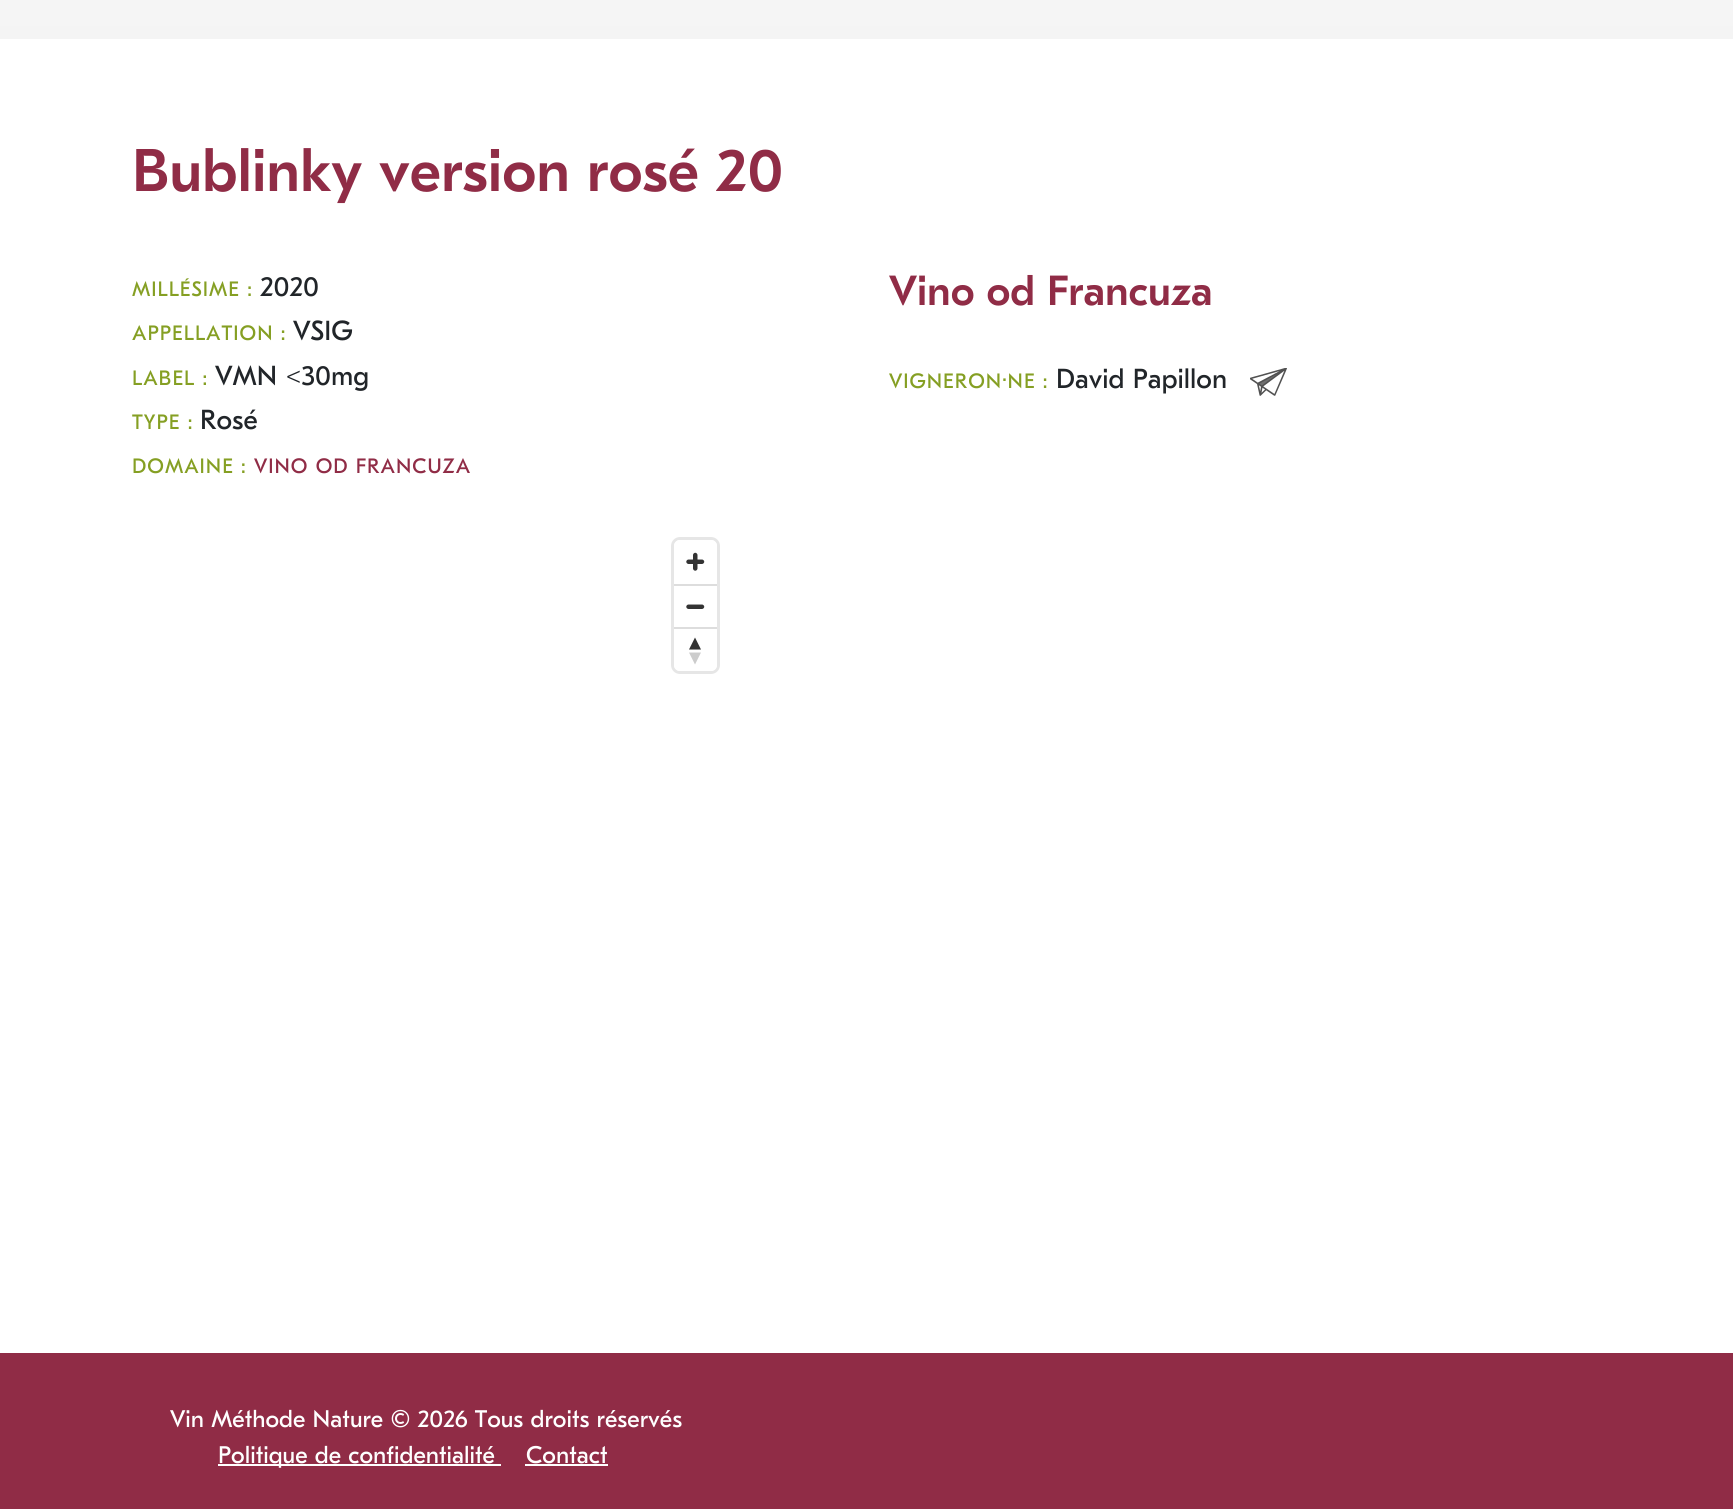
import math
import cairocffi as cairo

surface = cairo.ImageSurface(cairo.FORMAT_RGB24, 1733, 1509)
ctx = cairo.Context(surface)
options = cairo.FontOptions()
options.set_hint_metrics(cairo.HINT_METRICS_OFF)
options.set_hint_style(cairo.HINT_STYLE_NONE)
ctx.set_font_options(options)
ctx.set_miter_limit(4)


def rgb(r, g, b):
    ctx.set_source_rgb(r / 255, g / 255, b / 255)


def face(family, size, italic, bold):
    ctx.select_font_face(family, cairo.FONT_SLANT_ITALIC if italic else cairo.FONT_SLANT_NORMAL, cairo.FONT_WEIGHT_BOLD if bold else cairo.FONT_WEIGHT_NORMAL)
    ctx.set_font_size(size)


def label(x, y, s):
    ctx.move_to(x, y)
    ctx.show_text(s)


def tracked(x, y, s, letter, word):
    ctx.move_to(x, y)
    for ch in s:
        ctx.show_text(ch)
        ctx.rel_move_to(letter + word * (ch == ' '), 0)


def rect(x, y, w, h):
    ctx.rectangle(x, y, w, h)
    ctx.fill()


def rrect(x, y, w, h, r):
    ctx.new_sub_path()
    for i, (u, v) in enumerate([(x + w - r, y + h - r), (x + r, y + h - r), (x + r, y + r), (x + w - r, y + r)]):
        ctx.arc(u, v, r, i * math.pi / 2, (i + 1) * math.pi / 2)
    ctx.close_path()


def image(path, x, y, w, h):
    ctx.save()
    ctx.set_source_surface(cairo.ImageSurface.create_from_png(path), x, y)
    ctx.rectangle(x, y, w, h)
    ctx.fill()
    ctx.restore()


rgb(255, 255, 255)
ctx.paint()
gradient = cairo.LinearGradient(867, -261, 867, 39)
gradient.add_color_stop_rgba(0, 1, 1, 1, 1)
gradient.add_color_stop_rgba(1, 0.957, 0.957, 0.957, 1)
ctx.set_source(gradient)
rect(0, 0, 1733, 39)
face('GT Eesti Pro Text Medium', 60, 0, 0)
rgb(144, 44, 70)
label(132, 191, 'Bublinky version rosé 20')
face('GT Eesti Pro Text', 20.75, 0, 0)
rgb(133, 159, 35)
tracked(132, 296, 'MILLÉSIME :', 1, 0)
face('GT Eesti Pro Text', 27.5, 0, 0)
rgb(33, 37, 41)
label(260, 296, '2020')
face('GT Eesti Pro Text', 20.75, 0, 0)
rgb(133, 159, 35)
tracked(132, 340, 'APPELLATION :', 1, 0)
face('GT Eesti Pro Text', 27.5, 0, 0)
rgb(33, 37, 41)
label(293, 340, 'VSIG')
face('GT Eesti Pro Text', 20.75, 0, 0)
rgb(133, 159, 35)
tracked(132, 385, 'LABEL :', 1, 0)
face('GT Eesti Pro Text', 27.5, 0, 0)
rgb(33, 37, 41)
label(215, 385, 'VMN <30mg')
face('GT Eesti Pro Text', 20.75, 0, 0)
rgb(133, 159, 35)
tracked(132, 429, 'TYPE :', 1, 0)
face('GT Eesti Pro Text', 27.5, 0, 0)
rgb(33, 37, 41)
label(200, 429, 'Rosé')
face('GT Eesti Pro Text', 20.75, 0, 0)
rgb(133, 159, 35)
tracked(132, 473, 'DOMAINE :', 1, 0)
rgb(144, 44, 70)
tracked(254, 473, 'VINO OD FRANCUZA', 1, 0)
rrect(672.5, 538.5, 46, 134, 7.5)
rgb(230, 230, 230)
ctx.set_line_width(3)
ctx.stroke()
rgb(255, 255, 255)
rrect(674, 540, 43, 131, 6)
ctx.fill()
image('image0.png', 686, 552, 19, 19)
rgb(221, 221, 221)
rect(674, 584, 43, 2)
image('image1.png', 686, 604, 19, 5)
rect(674, 627, 43, 2)
rgb(51, 51, 51)
ctx.new_path()
ctx.move_to(689, 649.5)
ctx.line_to(695, 637.5)
ctx.line_to(701, 649.5)
ctx.close_path()
ctx.fill()
rgb(204, 204, 204)
ctx.new_path()
ctx.move_to(689, 652.5)
ctx.line_to(695, 664.5)
ctx.line_to(701, 652.5)
ctx.close_path()
ctx.fill()
face('GT Eesti Pro Text Medium', 42, 0, 0)
rgb(144, 44, 70)
label(889, 305, 'Vino od Francuza')
face('GT Eesti Pro Text', 20.75, 0, 0)
rgb(133, 159, 35)
tracked(889, 388, 'VIGNERON·NE :', 1, 0)
face('GT Eesti Pro Text', 27.5, 0, 0)
rgb(33, 37, 41)
label(1056, 388, 'David Papillon')
image('image2.png', 1250, 368, 37, 28)
rgb(144, 44, 70)
rect(0, 1353, 1733, 156)
face('GT Eesti Pro Text', 24, 0, 0)
rgb(255, 255, 255)
label(170, 1427, 'Vin Méthode Nature © 2026 Tous droits réservés')
rect(218, 1464, 283, 2)
label(218, 1463, 'Politique de confidentialité')
label(526, 1463, 'Contact')
rect(525, 1464, 83, 2)
surface.write_to_png('render.png')
